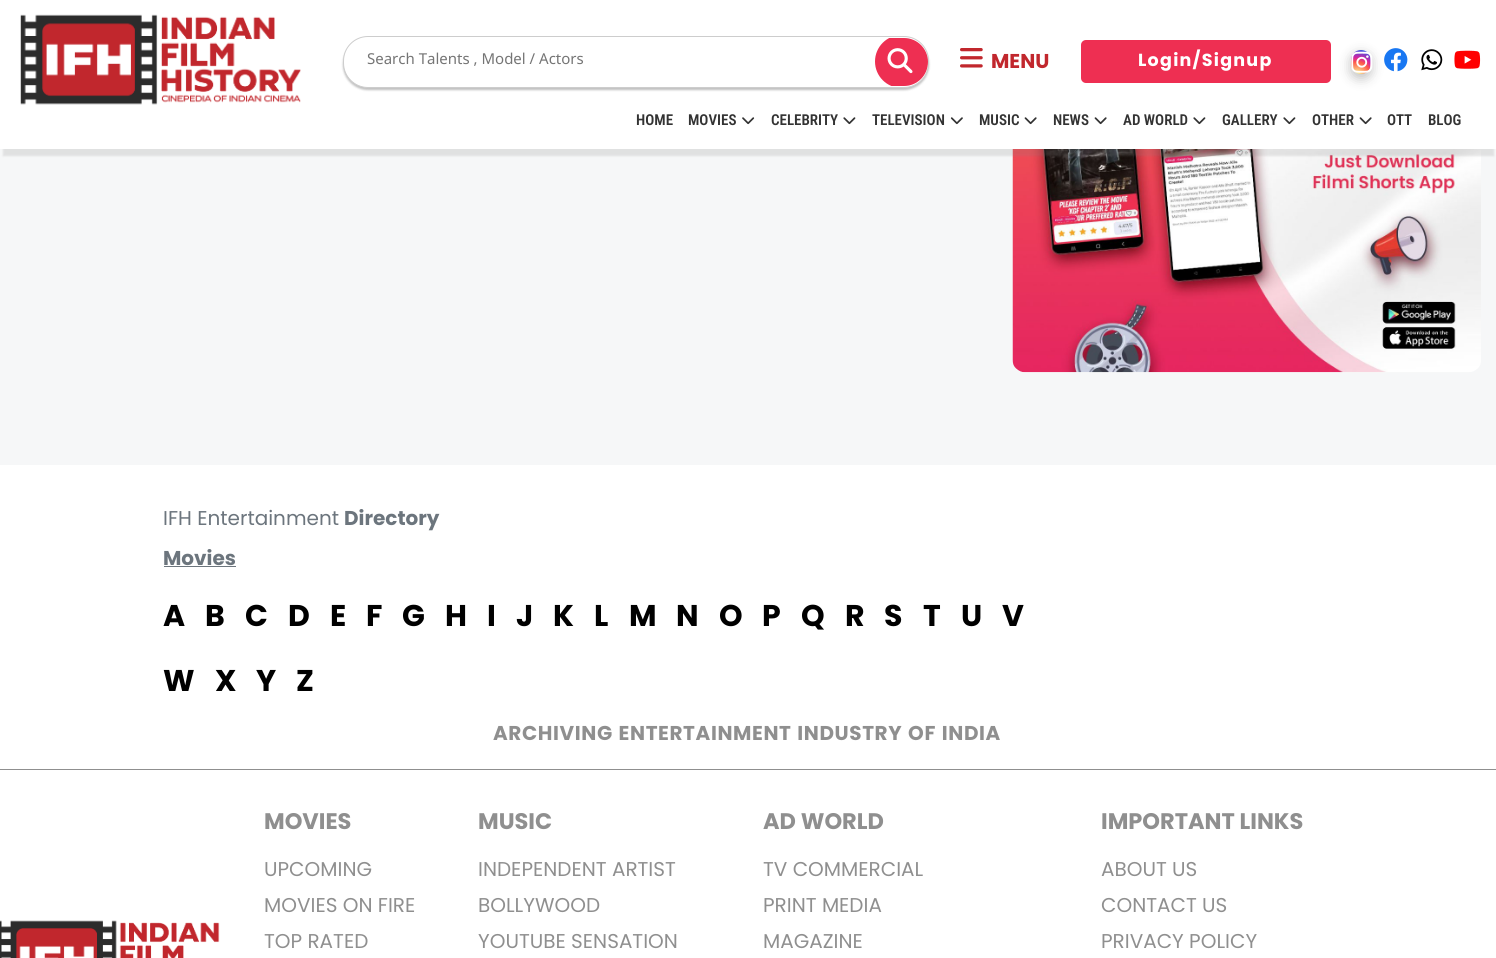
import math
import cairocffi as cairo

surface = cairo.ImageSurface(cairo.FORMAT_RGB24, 1496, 958)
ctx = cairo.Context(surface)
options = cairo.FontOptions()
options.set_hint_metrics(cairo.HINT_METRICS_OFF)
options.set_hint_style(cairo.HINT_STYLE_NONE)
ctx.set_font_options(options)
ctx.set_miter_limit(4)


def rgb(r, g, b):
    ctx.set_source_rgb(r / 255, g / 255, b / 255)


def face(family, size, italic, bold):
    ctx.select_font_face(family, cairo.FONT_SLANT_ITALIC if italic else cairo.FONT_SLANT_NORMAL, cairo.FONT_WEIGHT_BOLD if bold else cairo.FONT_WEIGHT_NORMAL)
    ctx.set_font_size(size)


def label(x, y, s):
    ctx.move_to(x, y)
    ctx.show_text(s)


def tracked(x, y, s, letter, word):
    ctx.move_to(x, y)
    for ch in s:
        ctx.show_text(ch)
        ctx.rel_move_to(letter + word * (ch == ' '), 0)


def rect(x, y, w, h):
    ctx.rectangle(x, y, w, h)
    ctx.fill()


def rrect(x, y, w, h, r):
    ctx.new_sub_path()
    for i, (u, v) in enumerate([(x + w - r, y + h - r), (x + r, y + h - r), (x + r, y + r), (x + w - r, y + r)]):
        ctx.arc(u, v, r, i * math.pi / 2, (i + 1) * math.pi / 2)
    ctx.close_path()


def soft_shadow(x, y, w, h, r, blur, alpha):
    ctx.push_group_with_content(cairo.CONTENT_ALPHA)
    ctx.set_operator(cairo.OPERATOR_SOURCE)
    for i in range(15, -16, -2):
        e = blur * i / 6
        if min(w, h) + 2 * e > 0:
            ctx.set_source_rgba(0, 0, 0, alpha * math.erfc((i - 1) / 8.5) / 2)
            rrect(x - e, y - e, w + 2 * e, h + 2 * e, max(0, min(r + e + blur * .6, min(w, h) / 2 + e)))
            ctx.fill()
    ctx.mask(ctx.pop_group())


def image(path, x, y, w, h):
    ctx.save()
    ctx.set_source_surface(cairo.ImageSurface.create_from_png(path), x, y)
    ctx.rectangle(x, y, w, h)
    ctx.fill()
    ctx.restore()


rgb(246, 247, 248)
ctx.paint()
image('image11.png', 1012, 149, 469, 224)
rgb(128, 128, 128)
soft_shadow(3, 11, 1491, 145, 0, 1, 0.19)
rgb(255, 255, 255)
rect(0, 0, 1496, 149)
image('image0.png', 20, 14, 281, 91)
rgb(0, 0, 0)
soft_shadow(343, 39, 586, 51, 25, 1, 0.25)
rgb(255, 255, 255)
rrect(343.5, 36.5, 585, 51, 24.5)
ctx.fill_preserve()
rgb(205, 205, 205)
ctx.set_line_width(1)
ctx.stroke()
face('Noto Sans', 15, 0, 0)
rgb(117, 117, 117)
label(367, 64, 'Search Talents , Model / Actors')
ctx.save()
rrect(344, 38, 584, 48, 24)
ctx.clip()
rgb(238, 47, 82)
ctx.arc(901.5, 61.5, 26.5, 0, 2 * math.pi)
ctx.fill()
ctx.restore()
image('image1.png', 887, 48, 26, 26)
image('image2.png', 960, 48, 23, 20)
face('Poppins', 20, 0, 1)
rgb(193, 39, 45)
label(991, 68, 'MENU')
rgb(238, 47, 82)
rrect(1081, 40, 250, 43, 5)
ctx.fill()
face('Poppins', 17.5, 0, 1)
rgb(255, 255, 255)
tracked(1138, 66, 'Login/Signup', 1.25, 0)
rgb(0, 0, 0)
soft_shadow(1351, 54, 20, 24, 10, 6, 0.25)
gradient = cairo.RadialGradient(1357, 75, 0, 1357, 75, 29)
gradient.add_color_stop_rgba(0, 0.992, 0.957, 0.592, 1)
gradient.add_color_stop_rgba(0.05, 0.992, 0.957, 0.592, 1)
gradient.add_color_stop_rgba(0.45, 0.992, 0.349, 0.286, 1)
gradient.add_color_stop_rgba(0.6, 0.839, 0.141, 0.624, 1)
gradient.add_color_stop_rgba(0.9, 0.157, 0.353, 0.922, 1)
ctx.set_source(gradient)
rrect(1351, 50, 20, 24, 10)
ctx.fill()
image('image3.png', 1351, 51, 22, 22)
image('image4.png', 1384, 48, 24, 24)
image('image5.png', 1421, 49, 22, 22)
image('image6.png', 1454, 50, 27, 19)
face('Roboto Condensed SemiBold', 15, 0, 0)
rgb(51, 51, 51)
label(636, 125, 'HOME')
label(688, 125, 'MOVIES')
image('image7.png', 742, 117, 13, 8)
label(771, 125, 'CELEBRITY')
image('image8.png', 843, 117, 13, 8)
label(872, 125, 'TELEVISION')
image('image9.png', 950, 117, 13, 8)
label(979, 125, 'MUSIC')
image('image10.png', 1024, 117, 13, 8)
label(1053, 125, 'NEWS')
image('image10.png', 1094, 117, 13, 8)
label(1123, 125, 'AD WORLD')
image('image8.png', 1193, 117, 13, 8)
label(1222, 125, 'GALLERY')
image('image8.png', 1283, 117, 13, 8)
label(1312, 125, 'OTHER')
image('image10.png', 1359, 117, 13, 8)
label(1387, 125, 'OTT')
label(1428, 125, 'BLOG')
rgb(255, 255, 255)
rect(0, 465, 1496, 493)
face('Poppins', 20, 0, 0)
rgb(108, 117, 125)
label(163, 525, 'IFH Entertainment')
face('Poppins', 20, 0, 1)
label(344, 525, 'Directory')
label(163, 565, 'Movies')
rect(164, 566, 72, 1)
face('Poppins', 30, 0, 1)
rgb(0, 0, 0)
label(163, 626, 'A')
label(205, 626, 'B')
label(245, 626, 'C')
label(288, 626, 'D')
label(330, 626, 'E')
label(366, 626, 'F')
label(402, 626, 'G')
label(445, 626, 'H')
label(487, 626, 'I')
label(516, 626, 'J')
label(553, 626, 'K')
label(594, 626, 'L')
label(629, 626, 'M')
label(676, 626, 'N')
label(719, 626, 'O')
label(762, 626, 'P')
label(801, 626, 'Q')
label(845, 626, 'R')
label(884, 626, 'S')
label(923, 626, 'T')
label(961, 626, 'U')
label(1002, 626, 'V')
label(163, 691, 'W')
label(215, 691, 'X')
label(256, 691, 'Y')
label(296, 691, 'Z')
face('Poppins', 20, 0, 1)
rgb(143, 143, 143)
tracked(493, 740, 'ARCHIVING ENTERTAINMENT INDUSTRY OF INDIA', 0.6, 1)
rect(0, 769, 1496, 1)
image('image12.png', 0, 920, 220, 38)
face('Poppins', 22.5, 0, 1)
label(264, 829, 'MOVIES')
face('Poppins', 20, 0, 0)
label(264, 876, 'UPCOMING')
label(264, 912, 'MOVIES ON FIRE')
label(264, 948, 'TOP RATED')
face('Poppins', 22.5, 0, 1)
label(478, 829, 'MUSIC')
face('Poppins', 20, 0, 0)
label(478, 876, 'INDEPENDENT ARTIST')
label(478, 912, 'BOLLYWOOD')
label(478, 948, 'YOUTUBE SENSATION')
face('Poppins', 22.5, 0, 1)
label(763, 829, 'AD WORLD')
face('Poppins', 20, 0, 0)
label(763, 876, 'TV COMMERCIAL')
label(763, 912, 'PRINT MEDIA')
label(763, 948, 'MAGAZINE')
face('Poppins', 22.5, 0, 1)
label(1101, 829, 'IMPORTANT LINKS')
face('Poppins', 20, 0, 0)
label(1101, 876, 'ABOUT US')
label(1101, 912, 'CONTACT US')
label(1101, 948, 'PRIVACY POLICY')
surface.write_to_png('render.png')
